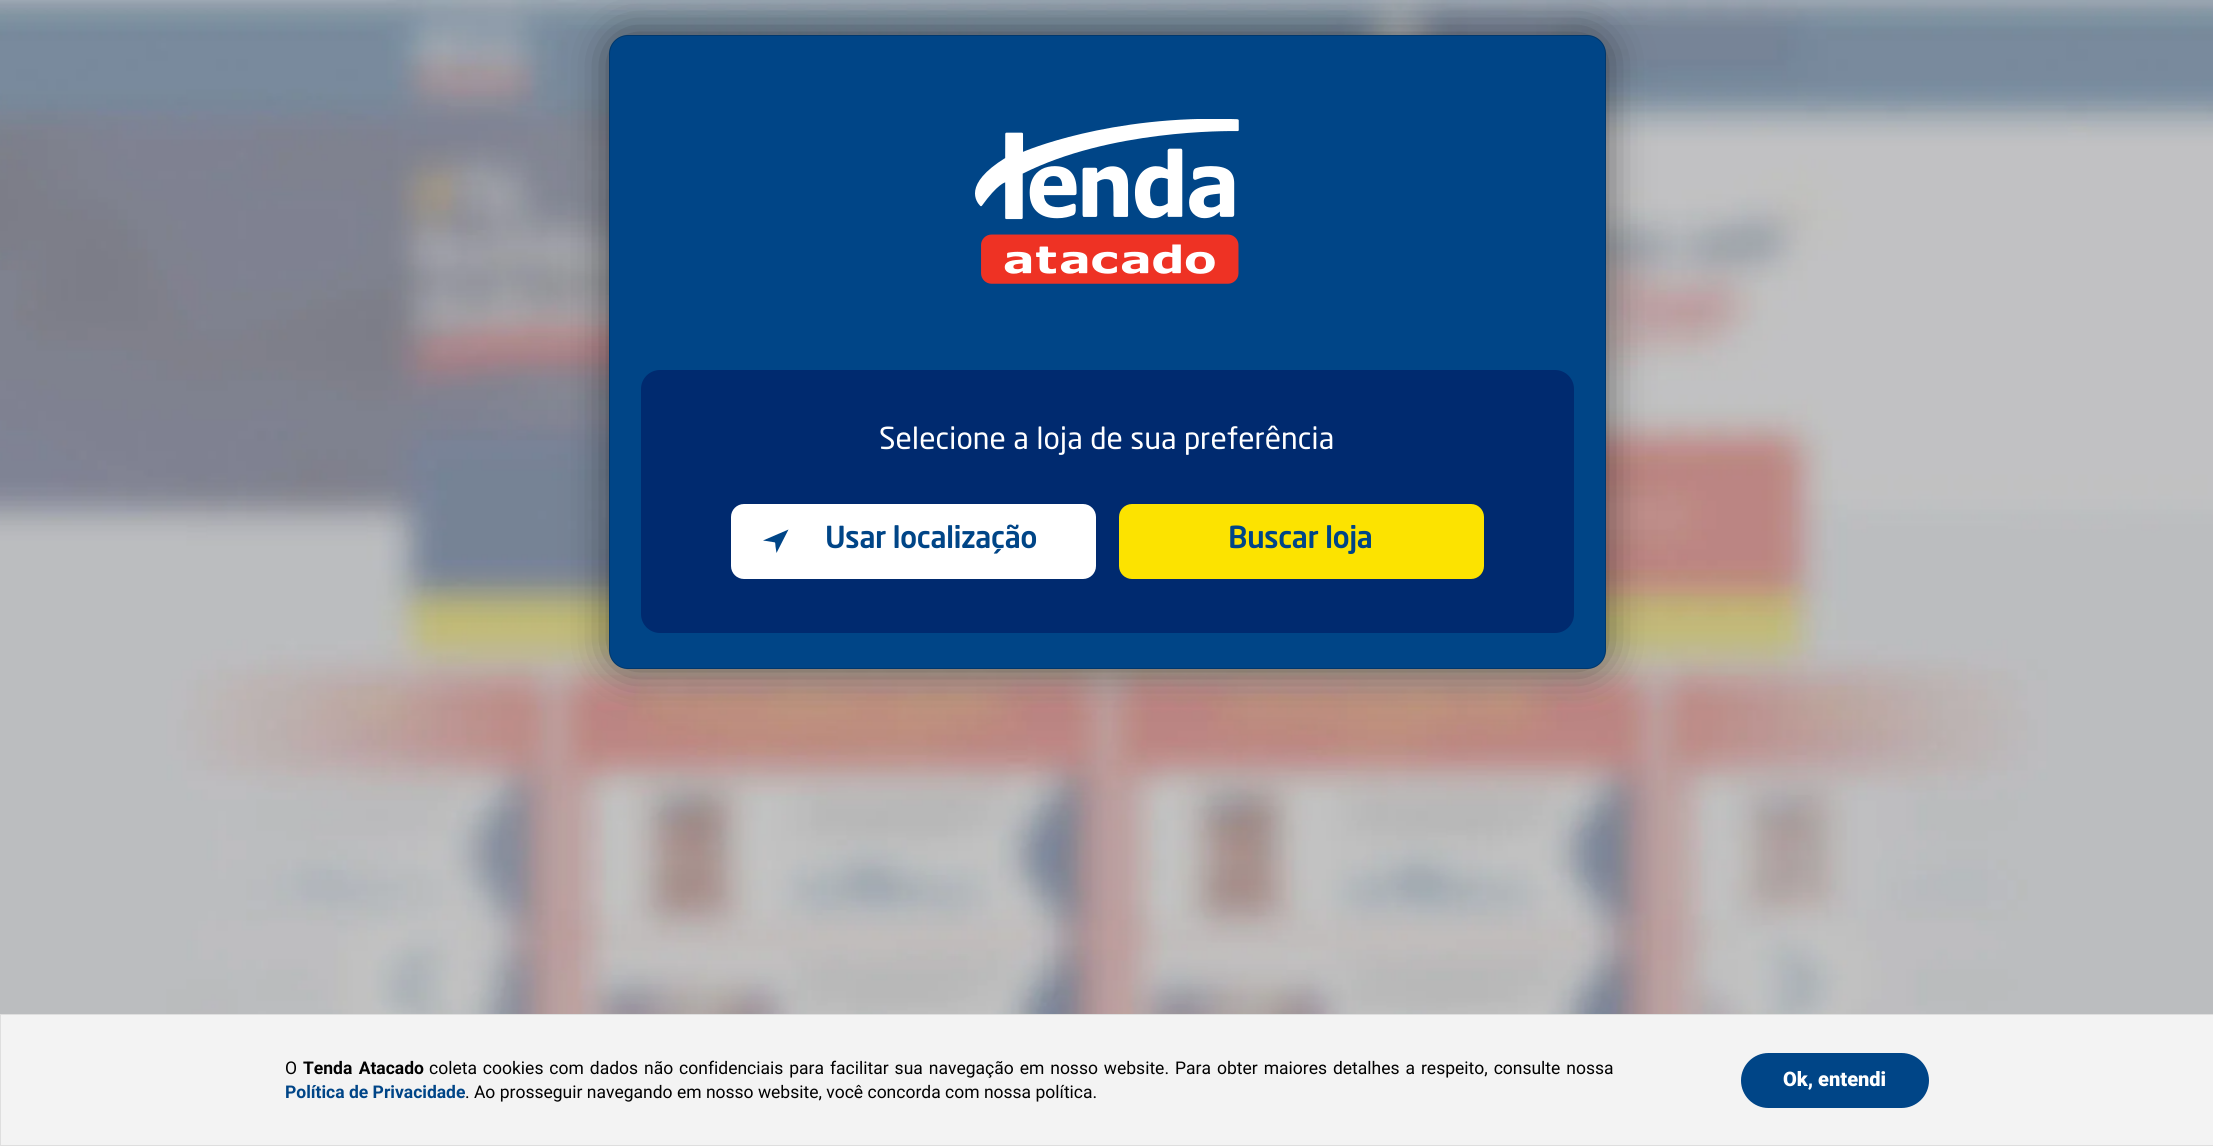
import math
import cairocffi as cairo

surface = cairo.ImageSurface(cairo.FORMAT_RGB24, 2213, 1146)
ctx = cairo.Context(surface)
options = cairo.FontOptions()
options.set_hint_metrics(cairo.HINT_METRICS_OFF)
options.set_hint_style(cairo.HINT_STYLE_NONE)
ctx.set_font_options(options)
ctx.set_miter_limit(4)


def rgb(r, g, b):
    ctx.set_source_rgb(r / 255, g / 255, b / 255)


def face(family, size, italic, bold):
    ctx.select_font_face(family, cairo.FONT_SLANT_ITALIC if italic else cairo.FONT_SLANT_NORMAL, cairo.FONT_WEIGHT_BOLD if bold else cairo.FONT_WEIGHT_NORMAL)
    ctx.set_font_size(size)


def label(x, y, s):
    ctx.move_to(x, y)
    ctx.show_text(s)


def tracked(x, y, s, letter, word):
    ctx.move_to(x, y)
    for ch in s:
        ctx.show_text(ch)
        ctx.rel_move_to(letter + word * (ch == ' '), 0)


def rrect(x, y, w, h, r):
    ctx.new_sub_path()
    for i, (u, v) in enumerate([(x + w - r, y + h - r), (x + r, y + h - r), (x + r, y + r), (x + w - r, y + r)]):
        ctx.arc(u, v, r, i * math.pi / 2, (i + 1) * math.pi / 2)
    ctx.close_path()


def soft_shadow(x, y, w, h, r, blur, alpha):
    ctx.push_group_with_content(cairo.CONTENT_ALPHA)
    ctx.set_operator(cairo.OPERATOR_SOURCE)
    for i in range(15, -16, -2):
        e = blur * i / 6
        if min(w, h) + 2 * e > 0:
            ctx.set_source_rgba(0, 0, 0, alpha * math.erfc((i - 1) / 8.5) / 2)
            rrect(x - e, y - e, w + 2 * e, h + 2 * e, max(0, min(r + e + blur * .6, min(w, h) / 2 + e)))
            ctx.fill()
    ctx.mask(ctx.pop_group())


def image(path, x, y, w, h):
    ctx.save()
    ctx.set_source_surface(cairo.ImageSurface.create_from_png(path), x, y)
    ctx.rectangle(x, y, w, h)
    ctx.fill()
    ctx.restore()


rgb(255, 255, 255)
ctx.paint()
image('image0.png', 0, 0, 2213, 1014)
rgb(0, 0, 0)
soft_shadow(609, 35, 997, 634, 19, 21, 0.5)
rgb(0, 69, 135)
rrect(609, 35, 997, 634, 19)
ctx.fill()
rrect(609.5, 35.5, 996, 633, 18.5)
ctx.set_source_rgba(0, 0, 0, 0.2)
ctx.set_line_width(1)
ctx.stroke()
image('image1.png', 975, 119, 264, 165)
rgb(0, 42, 111)
rrect(641, 370, 933, 263, 19)
ctx.fill()
face('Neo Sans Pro', 30, 0, 0)
rgb(255, 255, 255)
label(879, 449, 'Selecione a loja de sua preferência')
rrect(731, 504, 365, 75, 13)
ctx.fill()
rgb(0, 69, 135)
ctx.new_path()
ctx.move_to(776.5, 553)
ctx.line_to(775.5, 546.5)
ctx.curve_to(775, 542, 776, 542.5, 772.5, 542)
ctx.line_to(763, 540.5)
ctx.line_to(788.5, 529.5)
ctx.close_path()
ctx.fill()
face('Neo Sans Pro Medium', 30, 0, 0)
tracked(825, 548, 'Usar localização', -0.6, 0)
rgb(252, 227, 0)
rrect(1119, 504, 365, 75, 13)
ctx.fill()
rgb(0, 69, 135)
tracked(1228, 548, 'Buscar loja', -0.6, 0)
rgb(243, 243, 243)
ctx.rectangle(0.5, 1014.5, 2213, 131)
ctx.fill_preserve()
rgb(222, 222, 222)
ctx.stroke()
face('Roboto', 17.5, 0, 0)
rgb(1, 1, 1)
label(285, 1074, 'O')
face('Roboto', 17.5, 0, 1)
tracked(303, 1074, 'Tenda Atacado', 0, 2)
face('Roboto', 17.5, 0, 0)
tracked(429, 1074, 'coleta cookies com dados não confidenciais para facilitar sua navegação em nosso website.', 0, 1.6)
tracked(1175, 1074, 'Para obter maiores detalhes a respeito, consulte nossa', 0, 1.6)
face('Roboto', 17.5, 0, 1)
rgb(0, 69, 135)
label(285, 1098, 'Política de Privacidade')
face('Roboto', 17.5, 0, 0)
rgb(1, 1, 1)
label(465, 1098, '. Ao prosseguir navegando em nosso website, você concorda com nossa política.')
rgb(0, 69, 135)
rrect(1741, 1053, 188, 55, 27.5)
ctx.fill()
face('Roboto Black', 20, 0, 0)
rgb(255, 255, 255)
label(1783, 1086, 'Ok, entendi')
surface.write_to_png('render.png')
